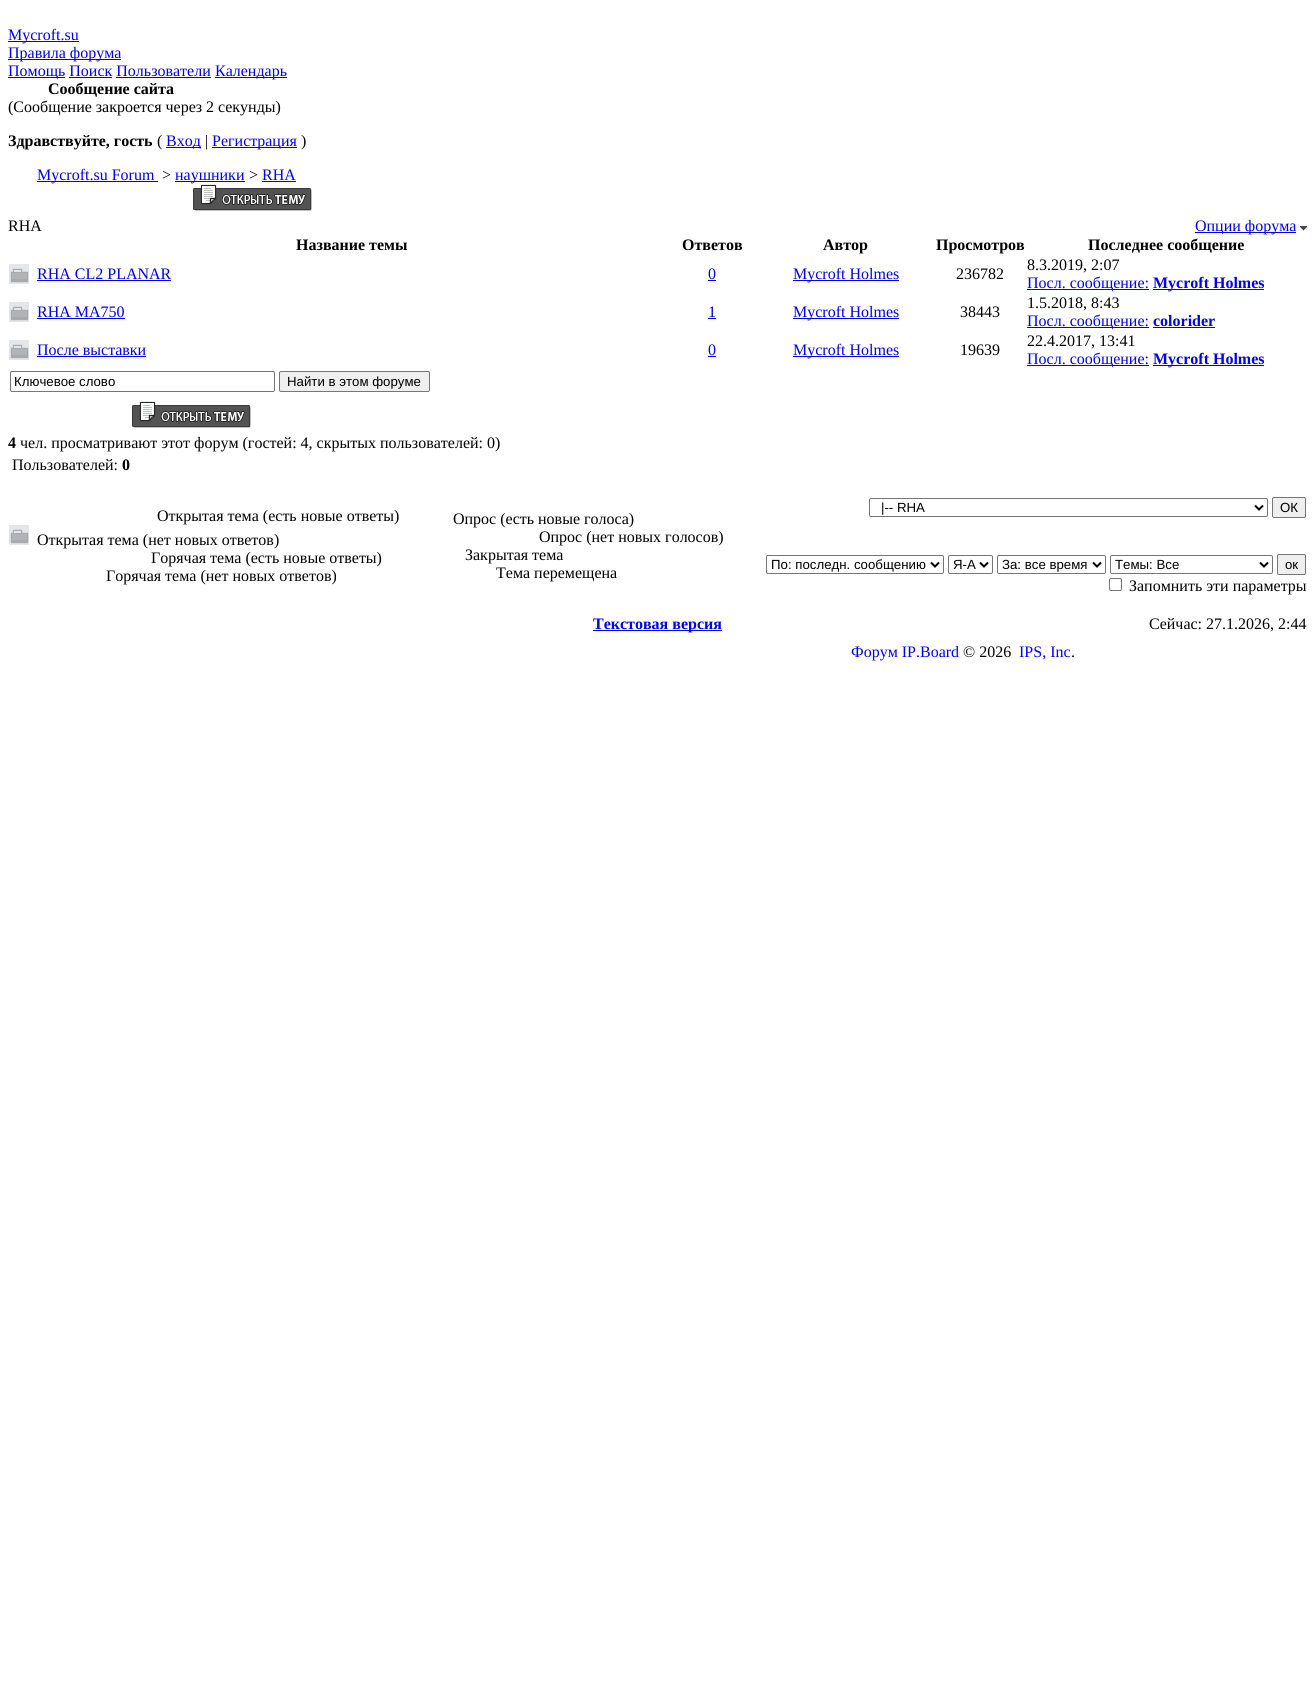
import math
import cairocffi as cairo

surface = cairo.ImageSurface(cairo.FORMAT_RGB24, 1315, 1689)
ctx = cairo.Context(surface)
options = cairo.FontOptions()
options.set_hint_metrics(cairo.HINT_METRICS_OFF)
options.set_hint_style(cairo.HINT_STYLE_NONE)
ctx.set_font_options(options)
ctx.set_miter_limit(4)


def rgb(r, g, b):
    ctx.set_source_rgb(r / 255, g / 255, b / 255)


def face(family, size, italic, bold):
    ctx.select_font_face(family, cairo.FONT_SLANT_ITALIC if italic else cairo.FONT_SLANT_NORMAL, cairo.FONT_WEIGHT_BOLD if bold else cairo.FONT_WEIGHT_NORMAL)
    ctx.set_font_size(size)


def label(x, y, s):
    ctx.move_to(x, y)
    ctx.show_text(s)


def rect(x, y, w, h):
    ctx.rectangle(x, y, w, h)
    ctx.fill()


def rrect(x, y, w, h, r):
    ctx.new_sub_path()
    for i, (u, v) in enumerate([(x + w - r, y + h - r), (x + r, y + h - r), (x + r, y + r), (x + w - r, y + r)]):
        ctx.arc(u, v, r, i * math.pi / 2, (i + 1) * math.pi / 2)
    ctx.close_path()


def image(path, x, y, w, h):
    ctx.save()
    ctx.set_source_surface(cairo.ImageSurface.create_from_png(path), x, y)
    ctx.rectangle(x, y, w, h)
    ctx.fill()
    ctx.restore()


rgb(255, 255, 255)
ctx.paint()
rgb(0, 0, 238)
rect(8, 41, 71, 1)
face('Liberation Serif', 16, 0, 0)
label(8, 40, 'Mycroft.su')
rect(8, 59, 113, 1)
label(8, 58, 'Правила форума')
rect(8, 77, 57, 1)
label(8, 76, 'Помощь Поиск Пользователи')
rect(215, 77, 72, 1)
label(215, 76, 'Календарь')
rect(69, 77, 43, 1)
rect(116, 77, 95, 1)
face('Liberation Serif', 16, 0, 1)
rgb(0, 0, 0)
label(48, 94, 'Сообщение сайта')
face('Liberation Serif', 16, 0, 0)
label(8, 112, '(Сообщение закроется через 2 секунды)')
face('Liberation Serif', 16, 0, 1)
label(8, 146, 'Здравствуйте, гость')
face('Liberation Serif', 16, 0, 0)
label(157, 146, '(')
rgb(0, 0, 238)
rect(166, 147, 35, 1)
label(166, 146, 'Вход')
rgb(0, 0, 0)
label(205, 146, '|')
rgb(0, 0, 238)
rect(212, 147, 85, 1)
label(212, 146, 'Регистрация')
rgb(0, 0, 0)
label(301, 146, ')')
rgb(0, 0, 238)
rect(37, 181, 121, 1)
label(37, 180, 'Mycroft.su Forum')
rgb(0, 0, 0)
label(162, 180, '>')
rgb(0, 0, 238)
rect(175, 181, 70, 1)
label(175, 180, 'наушники')
rgb(0, 0, 0)
label(249, 180, '>')
rgb(0, 0, 238)
label(262, 180, 'RHA')
rect(262, 181, 34, 1)
image('image0.png', 193, 184, 119, 27)
rgb(0, 0, 0)
label(8, 231, 'RHA')
rgb(0, 0, 238)
rect(1195, 232, 101, 1)
label(1195, 231, 'Опции форума')
image('image1.png', 1300, 226, 7, 5)
face('Liberation Serif', 16, 0, 1)
rgb(0, 0, 0)
label(296, 250, 'Название темы')
label(682, 250, 'Ответов')
label(823, 250, 'Автор')
label(936, 250, 'Просмотров')
label(1088, 250, 'Последнее сообщение')
image('image2.png', 9, 264, 20, 20)
face('Liberation Serif', 16, 0, 0)
rgb(0, 0, 238)
label(37, 279, 'RHA CL2 PLANAR')
rect(37, 280, 134, 1)
label(708, 279, '0')
rect(708, 280, 8, 1)
rect(793, 280, 106, 1)
label(793, 279, 'Mycroft Holmes')
rgb(0, 0, 0)
label(956, 279, '236782')
label(1027, 270, '8.3.2019, 2:07')
rgb(0, 0, 238)
rect(1027, 289, 122, 1)
label(1027, 288, 'Посл. сообщение:')
rect(1153, 289, 111, 1)
face('Liberation Serif', 16, 0, 1)
label(1153, 288, 'Mycroft Holmes')
image('image2.png', 9, 302, 20, 20)
face('Liberation Serif', 16, 0, 0)
label(37, 317, 'RHA MA750')
rect(37, 318, 88, 1)
label(708, 317, '1')
rect(708, 318, 8, 1)
rect(793, 318, 106, 1)
label(793, 317, 'Mycroft Holmes')
rgb(0, 0, 0)
label(960, 317, '38443')
label(1027, 308, '1.5.2018, 8:43')
rgb(0, 0, 238)
rect(1027, 327, 122, 1)
label(1027, 326, 'Посл. сообщение:')
face('Liberation Serif', 16, 0, 1)
label(1153, 326, 'colorider')
rect(1153, 327, 62, 1)
image('image2.png', 9, 340, 20, 20)
face('Liberation Serif', 16, 0, 0)
label(37, 355, 'После выставки')
rect(37, 356, 109, 1)
label(708, 355, '0')
rect(708, 356, 8, 1)
rect(793, 356, 106, 1)
label(793, 355, 'Mycroft Holmes')
rgb(0, 0, 0)
label(960, 355, '19639')
label(1027, 346, '22.4.2017, 13:41')
rgb(0, 0, 238)
rect(1027, 365, 122, 1)
label(1027, 364, 'Посл. сообщение:')
rect(1153, 365, 111, 1)
face('Liberation Serif', 16, 0, 1)
label(1153, 364, 'Mycroft Holmes')
rrect(10.5, 371.5, 264, 20, 1.5)
rgb(118, 118, 118)
ctx.set_line_width(1)
ctx.stroke()
face('Liberation Sans', 13.25, 0, 0)
rgb(0, 0, 0)
label(14, 386, 'Ключевое слово')
rgb(239, 239, 239)
rrect(279.5, 371.5, 150, 20, 1.5)
ctx.fill_preserve()
rgb(118, 118, 118)
ctx.stroke()
rgb(0, 0, 0)
label(287, 386, 'Найти в этом форуме')
image('image0.png', 132, 401, 119, 27)
face('Liberation Serif', 16, 0, 1)
label(8, 448, '4')
face('Liberation Serif', 16, 0, 0)
label(20, 448, 'чел. просматривают этот форум (гостей: 4, скрытых пользователей: 0)')
label(12, 470, 'Пользователей:')
face('Liberation Serif', 16, 0, 1)
label(122, 470, '0')
face('Liberation Serif', 16, 0, 0)
label(157, 521, 'Открытая тема (есть новые ответы)')
image('image2.png', 9, 525, 20, 20)
label(37, 545, 'Открытая тема (нет новых ответов)')
label(151, 563, 'Горячая тема (есть новые ответы)')
label(106, 581, 'Горячая тема (нет новых ответов)')
label(453, 524, 'Опрос (есть новые голоса)')
label(539, 542, 'Опрос (нет новых голосов)')
label(465, 560, 'Закрытая тема')
label(496, 578, 'Тема перемещена')
rrect(869.5, 498.5, 398, 18, 1.5)
rgb(118, 118, 118)
ctx.stroke()
ctx.new_path()
ctx.move_to(1255, 505.5)
ctx.line_to(1259, 509.5)
ctx.line_to(1263, 505.5)
rgb(0, 0, 0)
ctx.set_line_width(2)
ctx.stroke()
face('Liberation Sans', 13.25, 0, 0)
label(881, 512, '|-- RHA')
rgb(239, 239, 239)
rrect(1272.5, 497.5, 33, 20, 1.5)
ctx.fill_preserve()
rgb(118, 118, 118)
ctx.set_line_width(1)
ctx.stroke()
rgb(0, 0, 0)
label(1280, 512, 'ОК')
rrect(766.5, 555.5, 177, 18, 1.5)
rgb(118, 118, 118)
ctx.stroke()
ctx.new_path()
ctx.move_to(931, 562.5)
ctx.line_to(935, 566.5)
ctx.line_to(939, 562.5)
rgb(0, 0, 0)
ctx.set_line_width(2)
ctx.stroke()
label(771, 569, 'По: последн. сообщению')
rrect(948.5, 555.5, 44, 18, 1.5)
rgb(118, 118, 118)
ctx.set_line_width(1)
ctx.stroke()
ctx.new_path()
ctx.move_to(980, 562.5)
ctx.line_to(984, 566.5)
ctx.line_to(988, 562.5)
rgb(0, 0, 0)
ctx.set_line_width(2)
ctx.stroke()
label(953, 569, 'Я-А')
rrect(997.5, 555.5, 108, 18, 1.5)
rgb(118, 118, 118)
ctx.set_line_width(1)
ctx.stroke()
ctx.new_path()
ctx.move_to(1093, 562.5)
ctx.line_to(1097, 566.5)
ctx.line_to(1101, 562.5)
rgb(0, 0, 0)
ctx.set_line_width(2)
ctx.stroke()
label(1002, 569, 'За: все время')
rrect(1110.5, 555.5, 162, 18, 1.5)
rgb(118, 118, 118)
ctx.set_line_width(1)
ctx.stroke()
ctx.new_path()
ctx.move_to(1260, 562.5)
ctx.line_to(1264, 566.5)
ctx.line_to(1268, 562.5)
rgb(0, 0, 0)
ctx.set_line_width(2)
ctx.stroke()
label(1115, 569, 'Темы: Все')
rgb(239, 239, 239)
rrect(1277.5, 554.5, 28, 20, 1.5)
ctx.fill_preserve()
rgb(118, 118, 118)
ctx.set_line_width(1)
ctx.stroke()
rgb(0, 0, 0)
label(1285, 569, 'ок')
rrect(1109.5, 578.5, 12, 12, 1.5)
rgb(118, 118, 118)
ctx.stroke()
face('Liberation Serif', 16, 0, 0)
rgb(0, 0, 0)
label(1129, 591, 'Запомнить эти параметры')
rgb(0, 0, 238)
rect(593, 630, 129, 1)
face('Liberation Serif', 16, 0, 1)
label(593, 629, 'Текстовая версия')
face('Liberation Serif', 16, 0, 0)
rgb(0, 0, 0)
label(1149, 629, 'Сейчас: 27.1.2026, 2:44')
rgb(0, 0, 238)
label(851, 657, 'Форум IP.Board')
rgb(0, 0, 0)
label(963, 657, '© 2026')
rgb(0, 0, 238)
label(1019, 657, 'IPS, Inc')
rgb(0, 0, 0)
label(1071, 657, '.')
surface.write_to_png('render.png')
